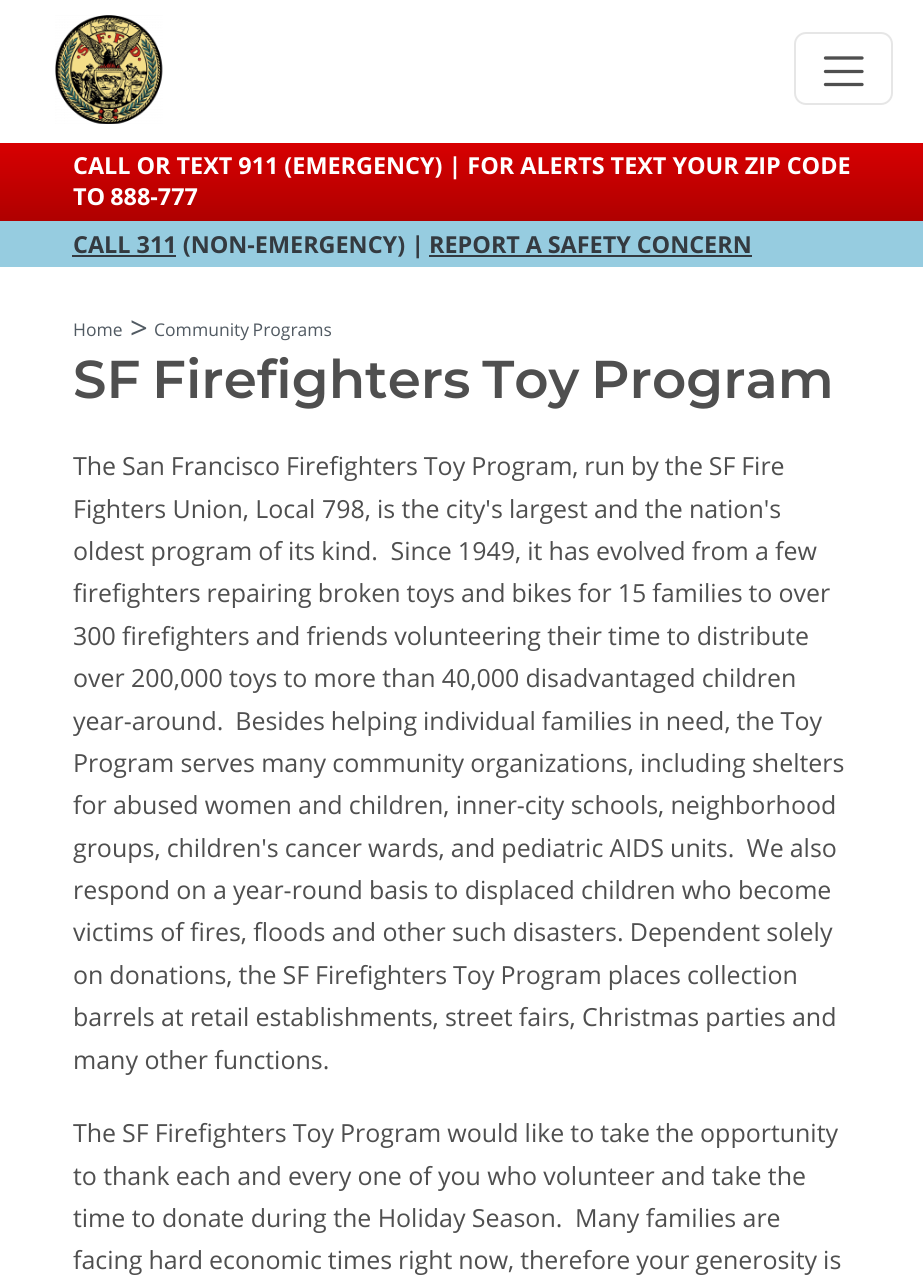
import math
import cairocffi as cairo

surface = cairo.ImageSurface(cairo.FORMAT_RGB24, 923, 1278)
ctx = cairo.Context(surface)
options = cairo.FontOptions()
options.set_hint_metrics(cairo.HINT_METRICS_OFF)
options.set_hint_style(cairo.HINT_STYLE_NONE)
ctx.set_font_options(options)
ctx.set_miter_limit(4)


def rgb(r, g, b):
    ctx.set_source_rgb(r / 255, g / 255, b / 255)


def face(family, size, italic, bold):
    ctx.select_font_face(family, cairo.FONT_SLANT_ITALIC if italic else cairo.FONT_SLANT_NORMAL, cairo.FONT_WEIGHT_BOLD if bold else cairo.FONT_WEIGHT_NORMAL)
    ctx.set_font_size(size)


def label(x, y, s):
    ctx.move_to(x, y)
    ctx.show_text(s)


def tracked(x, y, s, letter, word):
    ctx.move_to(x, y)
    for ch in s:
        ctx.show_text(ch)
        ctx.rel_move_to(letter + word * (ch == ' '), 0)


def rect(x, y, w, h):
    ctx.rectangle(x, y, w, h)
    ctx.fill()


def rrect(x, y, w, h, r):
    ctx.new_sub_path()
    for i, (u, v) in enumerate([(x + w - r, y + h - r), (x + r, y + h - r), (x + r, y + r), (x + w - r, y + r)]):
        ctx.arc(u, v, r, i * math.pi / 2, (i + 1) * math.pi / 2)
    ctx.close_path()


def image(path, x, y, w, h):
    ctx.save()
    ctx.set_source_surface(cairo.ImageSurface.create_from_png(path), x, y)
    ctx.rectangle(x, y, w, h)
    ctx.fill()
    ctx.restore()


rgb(255, 255, 255)
ctx.paint()
image('image0.png', 55, 15, 108, 109)
rrect(795, 33, 97, 71, 11)
rgb(230, 230, 230)
ctx.stroke()
ctx.new_path()
ctx.move_to(825.5, 58)
ctx.line_to(862, 58)
ctx.move_to(825.5, 71.5)
ctx.line_to(862, 71.5)
ctx.move_to(825.5, 84.5)
ctx.line_to(862, 84.5)
rgb(79, 79, 79)
ctx.set_line_width(3.3)
ctx.set_line_cap(cairo.LINE_CAP_ROUND)
ctx.stroke()
gradient = cairo.LinearGradient(462, 142, 462, 221)
gradient.add_color_stop_rgba(0, 0.847, 0, 0.004, 1)
gradient.add_color_stop_rgba(1, 0.686, 0, 0, 1)
gradient.add_color_stop_rgba(1, 1, 0.996, 0.996, 1)
gradient.add_color_stop_rgba(1, 1, 1, 1, 1)
gradient.add_color_stop_rgba(1, 0.561, 0.008, 0.008, 1)
ctx.set_source(gradient)
rect(0, 143, 923, 78)
face('Open Sans', 23.4, 0, 1)
rgb(255, 255, 255)
tracked(73, 174, 'CALL OR TEXT 911 (EMERGENCY) | FOR ALERTS TEXT YOUR ZIP CODE', 0, -0.1)
tracked(73, 205, 'TO 888-777', 0, -1)
rgb(150, 204, 224)
rect(0, 221, 923, 46)
rgb(52, 58, 64)
rect(72, 255, 104, 2)
label(73, 253, 'CALL 311 (NON-EMERGENCY) |')
tracked(429, 253, 'REPORT A SAFETY CONCERN', 0, -0.25)
rect(429, 255, 323, 2)
face('Open Sans', 17.5, 0, 0)
rgb(81, 90, 98)
label(73, 336, 'Home')
face('Open Sans', 31, 0, 0)
label(130, 339, '>')
face('Open Sans', 17.5, 0, 0)
tracked(154, 336, 'Community Programs', 0, -1)
face('Montserrat SemiBold', 53.2, 0, 0)
rgb(79, 79, 79)
tracked(73, 398, 'SF Firefighters Toy Program', 0, -3)
face('Open Sans', 24.95, 0, 0)
tracked(73, 475, 'The San Francisco Firefighters Toy Program, run by the SF Fire', 0, -0.6)
label(73, 518, 'Fighters Union, Local 798,')
tracked(377, 518, 'is the city\'s largest and the nation\'s', 0, -0.25)
tracked(73, 560, 'oldest program of its kind.  Since 1949, it has evolved from a few', 0, -0.25)
tracked(73, 602, 'firefighters repairing broken toys and bikes for 15 families to over', 0, -0.5)
tracked(73, 645, '300 firefighters and friends volunteering their time to distribute', 0, -0.25)
tracked(73, 687, 'over 200,000 toys to more than 40,000 disadvantaged children', 0, -0.25)
tracked(73, 730, 'year-around.  Besides helping individual families in need, the Toy', 0, -0.5)
tracked(73, 772, 'Program serves many community organizations, including shelters', 0, -0.25)
tracked(73, 814, 'for abused women and children, inner-city schools, neighborhood', 0, -0.25)
tracked(73, 857, 'groups, children\'s cancer wards, and pediatric AIDS units.  We also', 0, -0.4)
tracked(73, 899, 'respond on a year-round basis to displaced children who become', 0, -0.25)
tracked(73, 941, 'victims of fires, floods and other such disasters. Dependent solely', 0, -0.2)
tracked(73, 984, 'on donations, the SF Firefighters Toy Program places collection', 0, -0.5)
tracked(73, 1026, 'barrels at retail establishments, street fairs, Christmas parties and', 0, -0.25)
label(73, 1069, 'many other functions.')
tracked(73, 1142, 'The SF Firefighters Toy Program would like to take the opportunity', 0, -0.5)
tracked(73, 1185, 'to thank each and every one of you who volunteer and take the', 0, -0.2)
tracked(73, 1227, 'time to donate during the Holiday Season.  Many families are', 0, -0.1)
tracked(73, 1269, 'facing hard economic times right now, therefore your generosity is', 0, -0.5)
surface.write_to_png('render.png')
